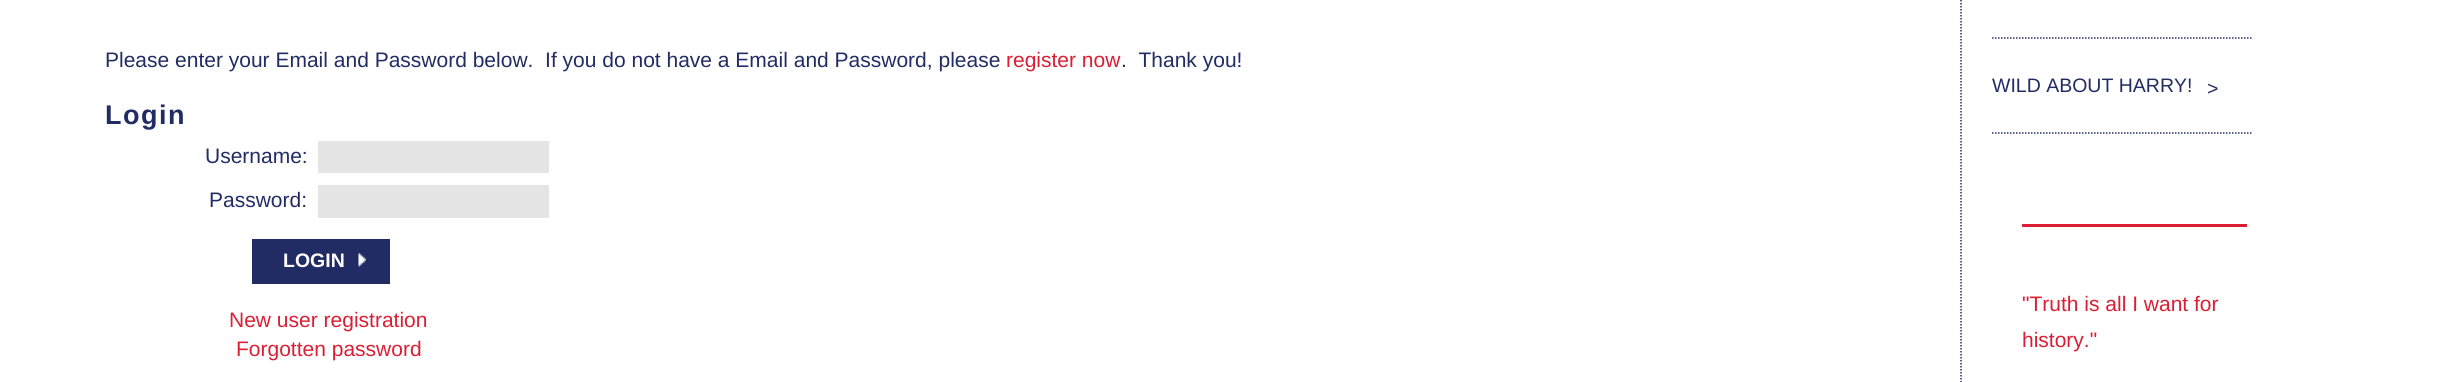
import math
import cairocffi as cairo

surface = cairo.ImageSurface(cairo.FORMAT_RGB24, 2452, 382)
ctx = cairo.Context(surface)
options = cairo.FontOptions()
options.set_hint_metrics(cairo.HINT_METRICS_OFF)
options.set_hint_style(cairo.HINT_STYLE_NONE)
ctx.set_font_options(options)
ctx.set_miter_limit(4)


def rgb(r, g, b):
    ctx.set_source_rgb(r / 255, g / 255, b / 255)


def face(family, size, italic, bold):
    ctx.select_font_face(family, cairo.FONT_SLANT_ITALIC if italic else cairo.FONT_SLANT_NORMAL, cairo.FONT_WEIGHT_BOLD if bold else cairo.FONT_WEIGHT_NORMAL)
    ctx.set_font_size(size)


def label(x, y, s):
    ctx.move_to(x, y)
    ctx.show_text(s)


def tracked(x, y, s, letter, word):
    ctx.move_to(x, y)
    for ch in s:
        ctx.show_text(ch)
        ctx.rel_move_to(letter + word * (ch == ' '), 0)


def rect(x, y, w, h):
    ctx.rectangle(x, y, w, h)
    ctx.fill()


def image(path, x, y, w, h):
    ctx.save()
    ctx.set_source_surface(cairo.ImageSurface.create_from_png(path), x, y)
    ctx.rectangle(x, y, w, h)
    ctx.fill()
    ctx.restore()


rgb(255, 255, 255)
ctx.paint()
ctx.new_path()
ctx.move_to(1961, -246)
ctx.line_to(1961, 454.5)
rgb(34, 44, 100)
ctx.set_line_width(1.5)
ctx.set_dash([1.5, 1.5])
ctx.stroke()
face('Liberation Sans', 21, 0, 0)
label(105, 67, 'Please enter your Email and Password below.  If you do not have a Email and Password, please')
rgb(219, 30, 52)
label(1006, 67, 'register now')
rgb(34, 44, 100)
label(1121, 67, '.  Thank you!')
face('Liberation Sans', 27, 0, 1)
tracked(105, 124, 'Login', 1.5, 0)
face('Liberation Sans', 21, 0, 0)
label(205, 163, 'Username:')
rgb(229, 229, 229)
rect(318, 141, 231, 32)
rgb(34, 44, 100)
label(209, 207, 'Password:')
rgb(229, 229, 229)
rect(318, 185, 231, 33)
rgb(34, 44, 100)
rect(252, 239, 138, 45)
image('image0.png', 358, 253, 8, 14)
face('Liberation Sans', 19.5, 0, 1)
rgb(255, 255, 255)
label(283, 267, 'LOGIN')
face('Liberation Sans', 21, 0, 0)
rgb(219, 30, 52)
label(229, 327, 'New user registration')
label(236, 356, 'Forgotten password')
ctx.new_path()
ctx.move_to(1992, 38)
ctx.line_to(2253, 38)
rgb(34, 44, 100)
ctx.stroke()
ctx.new_path()
ctx.move_to(1992, 133)
ctx.line_to(2253, 133)
ctx.stroke()
face('Liberation Sans', 19.5, 0, 0)
label(1992, 92, 'WILD ABOUT HARRY!')
label(2207, 95, '>')
rgb(219, 30, 52)
rect(2022, 224, 225, 3)
face('Liberation Sans', 21, 0, 0)
label(2022, 311, '"Truth is all I want for')
label(2022, 347, 'history."')
surface.write_to_png('render.png')
